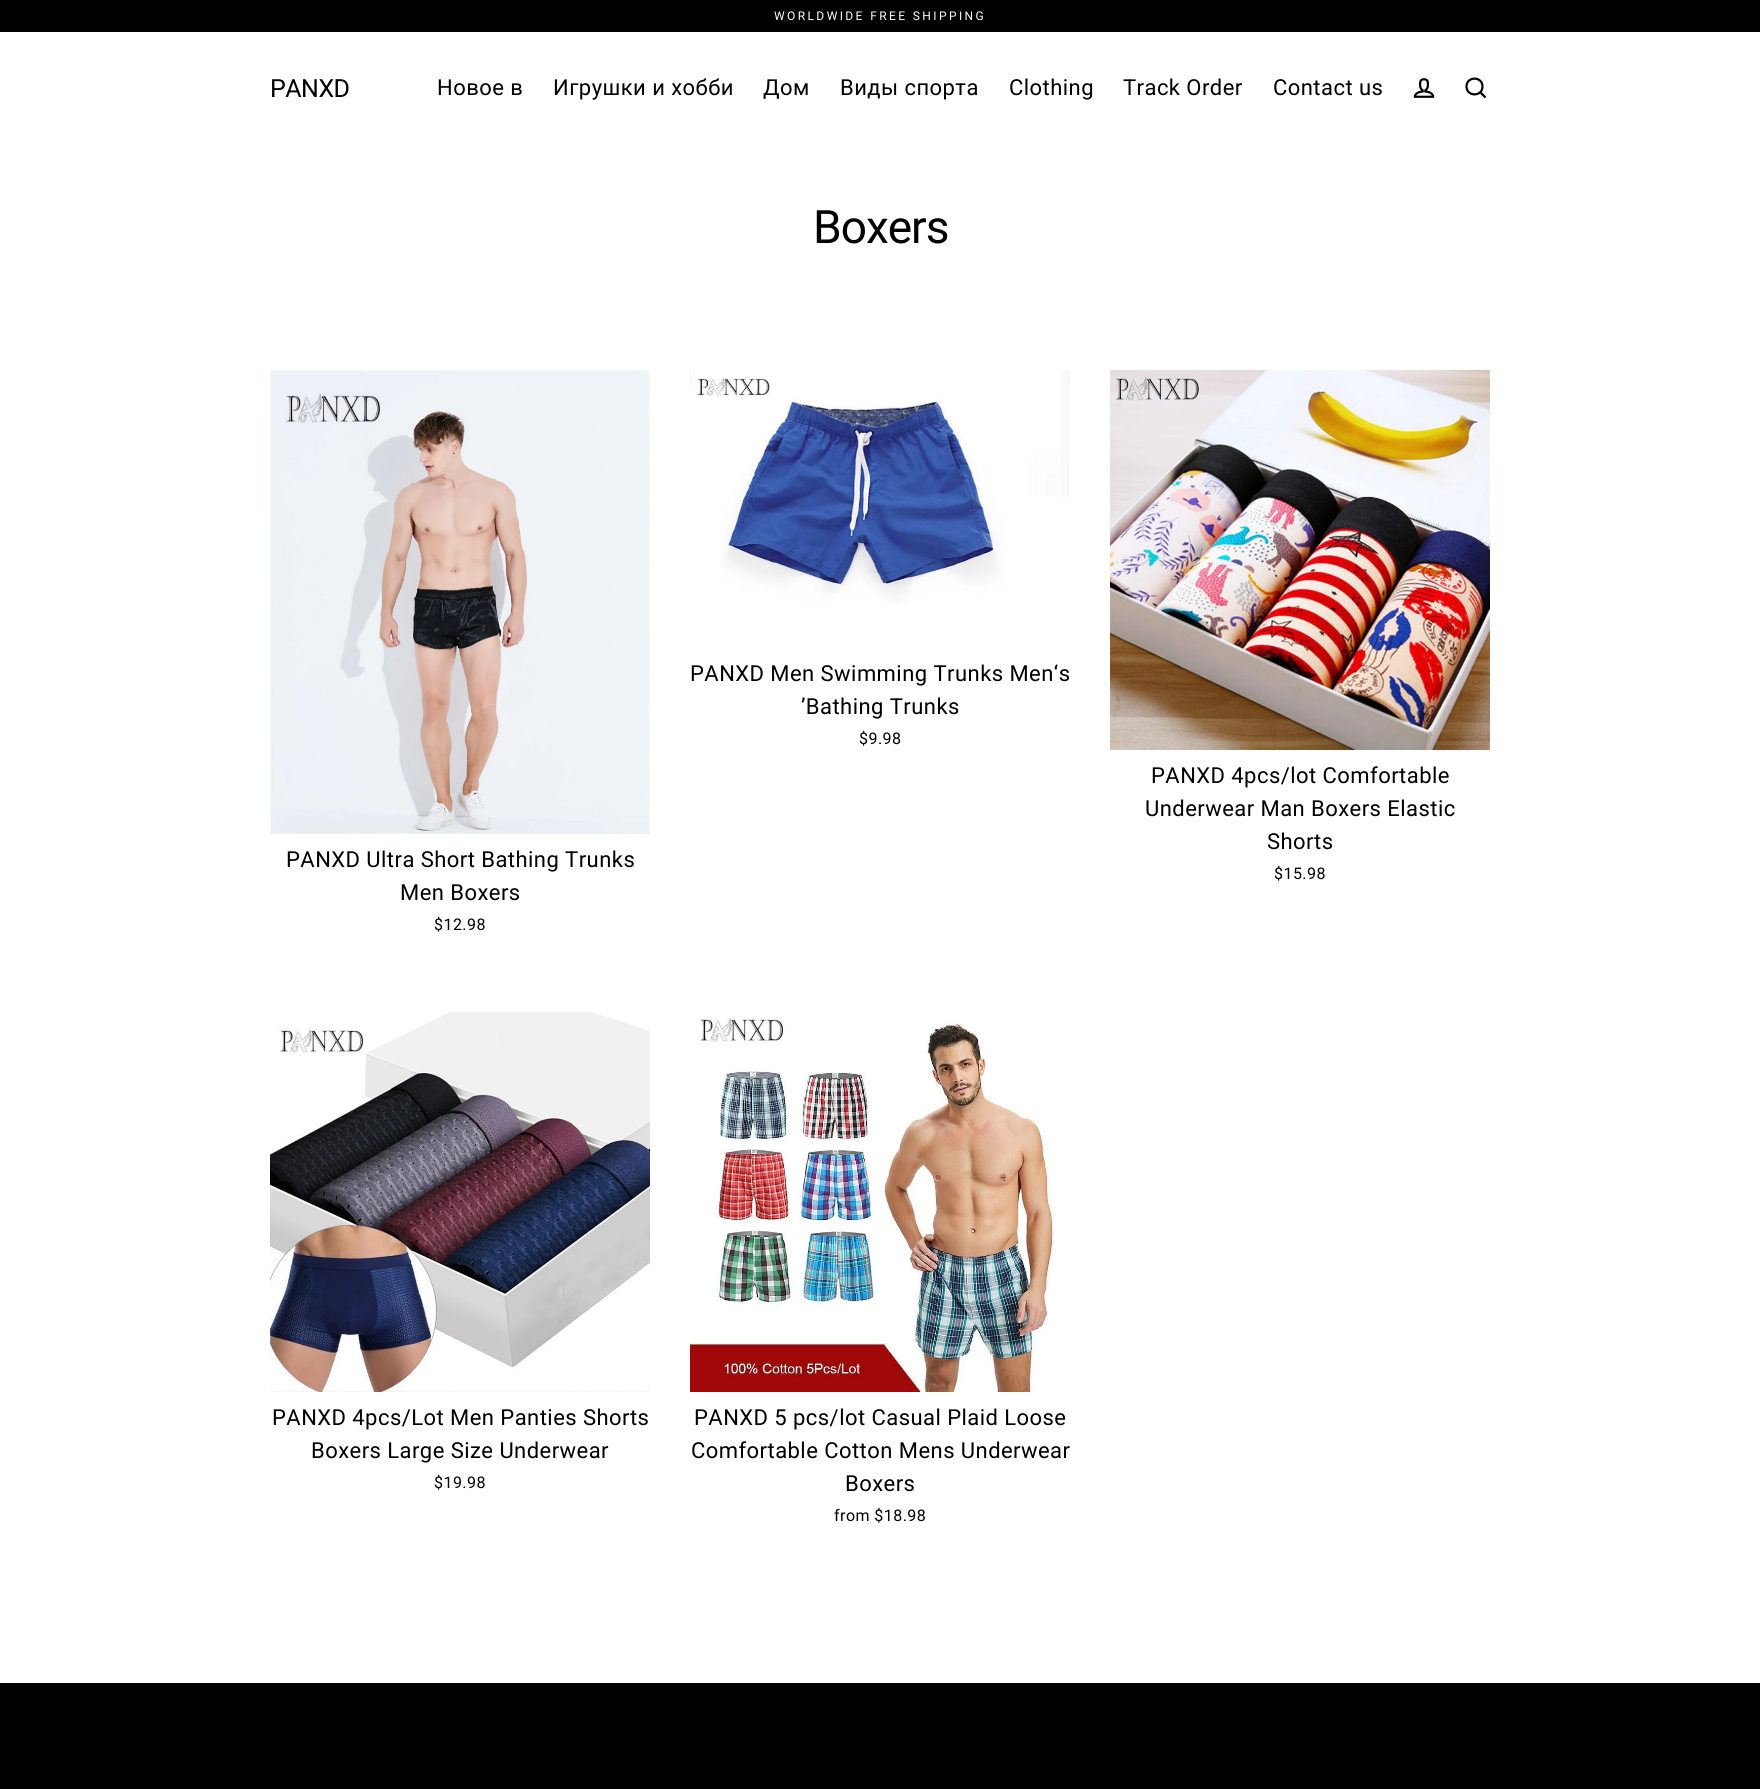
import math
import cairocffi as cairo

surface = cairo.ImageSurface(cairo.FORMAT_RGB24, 1760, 1789)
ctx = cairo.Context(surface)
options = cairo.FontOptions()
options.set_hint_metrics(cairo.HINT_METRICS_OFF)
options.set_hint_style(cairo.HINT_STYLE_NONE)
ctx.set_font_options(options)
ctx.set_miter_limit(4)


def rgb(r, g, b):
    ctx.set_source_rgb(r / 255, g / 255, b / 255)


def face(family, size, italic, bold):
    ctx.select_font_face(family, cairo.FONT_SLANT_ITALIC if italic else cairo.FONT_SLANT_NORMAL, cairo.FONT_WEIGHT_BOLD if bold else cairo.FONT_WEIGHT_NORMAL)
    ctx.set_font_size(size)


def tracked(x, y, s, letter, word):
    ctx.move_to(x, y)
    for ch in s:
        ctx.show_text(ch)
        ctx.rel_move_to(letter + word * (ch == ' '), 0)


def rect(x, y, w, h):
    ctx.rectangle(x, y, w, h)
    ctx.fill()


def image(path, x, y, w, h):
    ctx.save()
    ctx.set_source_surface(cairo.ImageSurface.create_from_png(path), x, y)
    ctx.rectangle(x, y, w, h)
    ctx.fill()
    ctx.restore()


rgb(255, 255, 255)
ctx.paint()
rgb(0, 0, 0)
rect(0, 0, 1760, 32)
face('Roboto', 12, 0, 0)
rgb(255, 255, 255)
tracked(774, 20, 'WORLDWIDE FREE SHIPPING', 2.4, 0)
face('Roboto', 25, 0, 0)
rgb(0, 0, 0)
tracked(270, 97, 'PANXD', -0.5, 0)
face('Roboto', 22, 0, 0)
tracked(437, 95, 'Новое в', 0.45, 0)
tracked(553, 95, 'Игрушки и хобби', 0.45, 0)
tracked(763, 95, 'Дом', 0.45, 0)
tracked(840, 95, 'Виды спорта', 0.45, 0)
tracked(1009, 95, 'Clothing', 0.45, 0)
tracked(1123, 95, 'Track Order', 0.45, 0)
tracked(1273, 95, 'Contact us', 0.45, 0)
image('image0.png', 1413, 78, 22, 20)
ctx.new_path()
ctx.move_to(1482.5, 86.5)
ctx.curve_to(1482.5, 97, 1466.5, 97, 1466.5, 86.5)
ctx.curve_to(1466.5, 76, 1482.5, 76, 1482.5, 86.5)
ctx.close_path()
ctx.move_to(1485.5, 97.5)
ctx.line_to(1480.5, 92.5)
ctx.set_line_width(2.2)
ctx.stroke()
face('Roboto', 46, 0, 0)
tracked(813, 243, 'Boxers', -1, 0)
image('image1.png', 690, 370, 380, 234)
face('Roboto', 22, 0, 0)
tracked(690, 681, 'PANXD Men Swimming Trunks Men‘s', 0.45, 0)
tracked(801, 714, '’Bathing Trunks', 0.45, 0)
face('Roboto', 16, 0, 0)
tracked(859, 744, '$9.98', 0.45, 0)
image('image2.png', 1110, 370, 380, 380)
face('Roboto', 22, 0, 0)
tracked(1151, 783, 'PANXD 4pcs/lot Comfortable', 0.45, 0)
tracked(1145, 816, 'Underwear Man Boxers Elastic', 0.45, 0)
tracked(1267, 849, 'Shorts', 0.45, 0)
face('Roboto', 16, 0, 0)
tracked(1274, 879, '$15.98', 0.45, 0)
image('image3.png', 270, 370, 380, 464)
face('Roboto', 22, 0, 0)
tracked(286, 867, 'PANXD Ultra Short Bathing Trunks', 0.45, 0)
tracked(400, 900, 'Men Boxers', 0.45, 0)
face('Roboto', 16, 0, 0)
tracked(434, 930, '$12.98', 0.45, 0)
image('image4.png', 270, 1012, 380, 380)
face('Roboto', 22, 0, 0)
tracked(272, 1425, 'PANXD 4pcs/Lot Men Panties Shorts', 0.45, 0)
tracked(311, 1458, 'Boxers Large Size Underwear', 0.45, 0)
face('Roboto', 16, 0, 0)
tracked(434, 1488, '$19.98', 0.45, 0)
image('image5.png', 690, 1018, 365, 374)
face('Roboto', 22, 0, 0)
tracked(694, 1425, 'PANXD 5 pcs/lot Casual Plaid Loose', 0.45, 0)
tracked(691, 1458, 'Comfortable Cotton Mens Underwear', 0.45, 0)
tracked(845, 1491, 'Boxers', 0.45, 0)
face('Roboto', 16, 0, 0)
tracked(834, 1521, 'from $18.98', 0.45, 0)
rect(0, 1683, 1760, 106)
surface.write_to_png('render.png')
